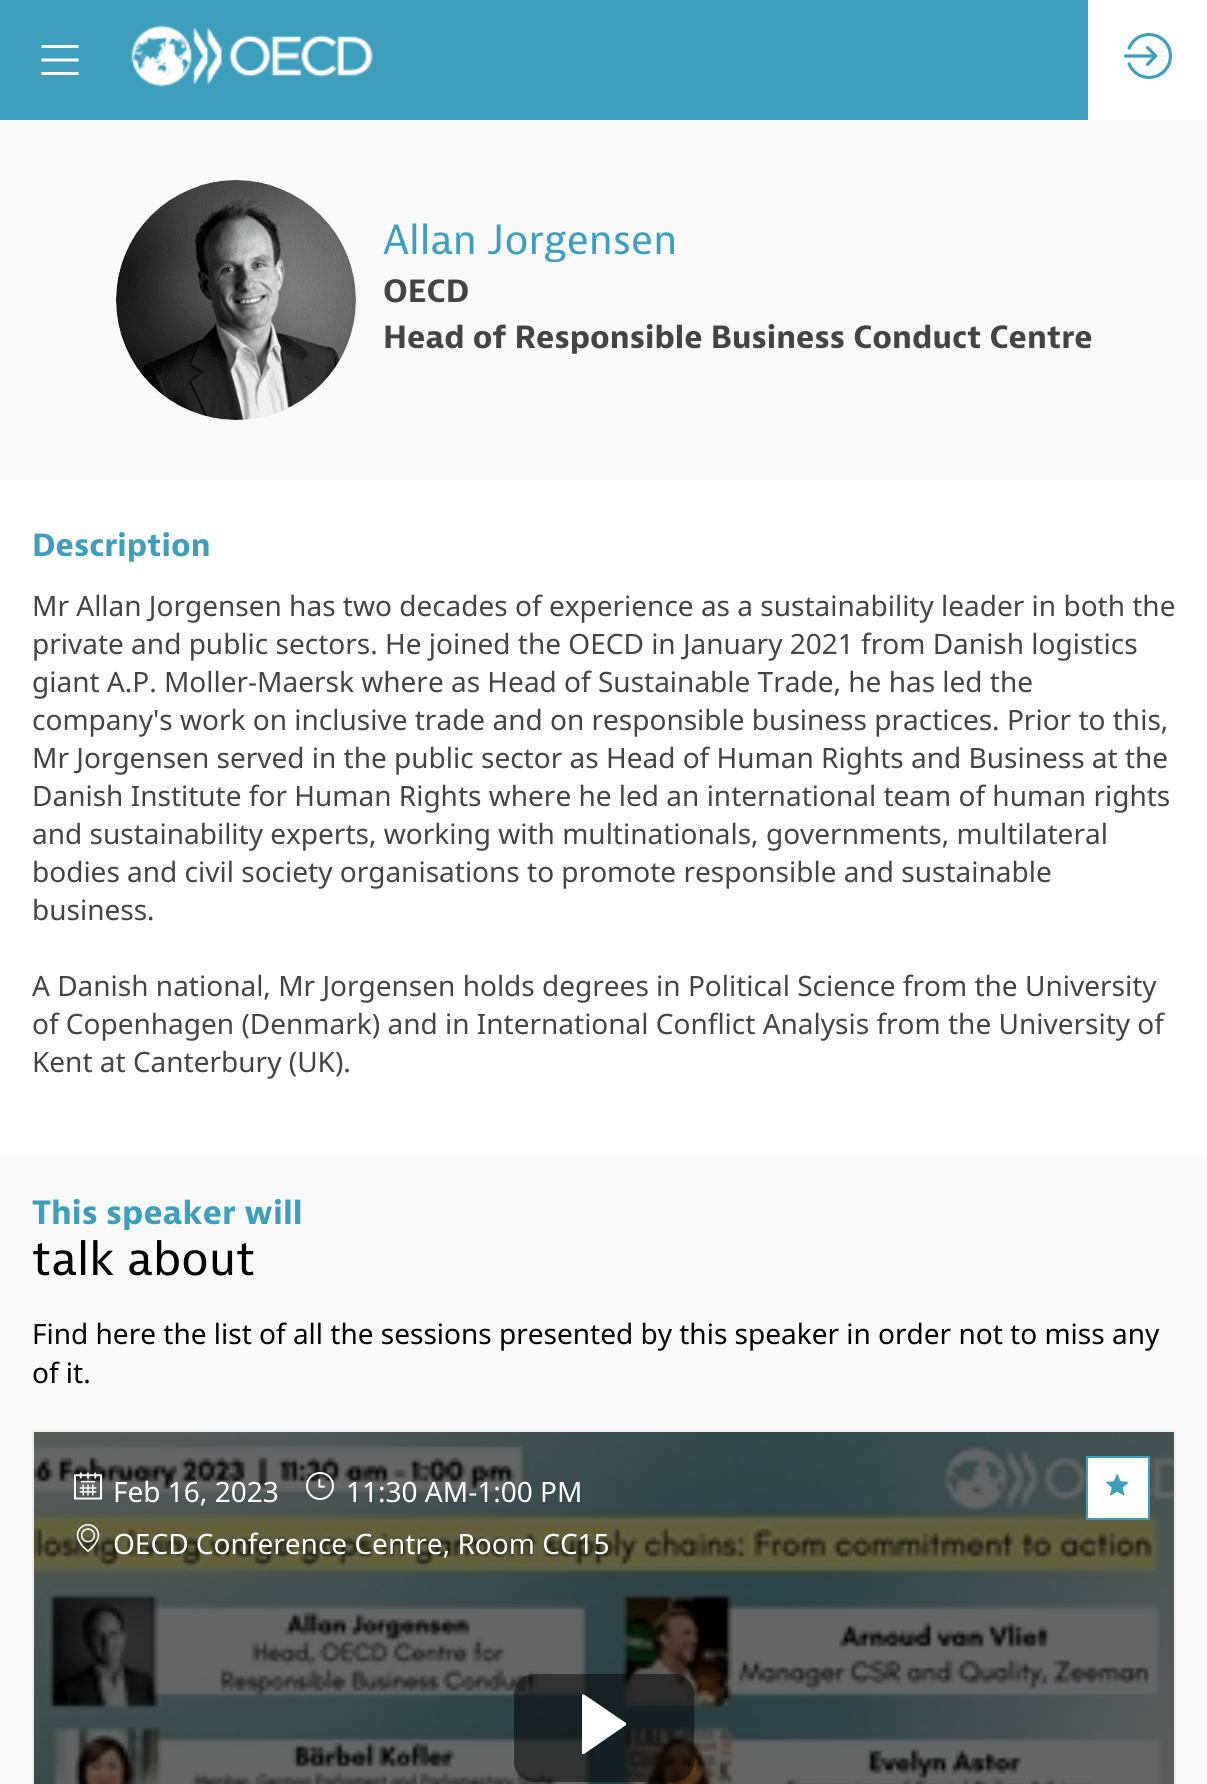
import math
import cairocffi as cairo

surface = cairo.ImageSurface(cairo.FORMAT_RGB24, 1207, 1784)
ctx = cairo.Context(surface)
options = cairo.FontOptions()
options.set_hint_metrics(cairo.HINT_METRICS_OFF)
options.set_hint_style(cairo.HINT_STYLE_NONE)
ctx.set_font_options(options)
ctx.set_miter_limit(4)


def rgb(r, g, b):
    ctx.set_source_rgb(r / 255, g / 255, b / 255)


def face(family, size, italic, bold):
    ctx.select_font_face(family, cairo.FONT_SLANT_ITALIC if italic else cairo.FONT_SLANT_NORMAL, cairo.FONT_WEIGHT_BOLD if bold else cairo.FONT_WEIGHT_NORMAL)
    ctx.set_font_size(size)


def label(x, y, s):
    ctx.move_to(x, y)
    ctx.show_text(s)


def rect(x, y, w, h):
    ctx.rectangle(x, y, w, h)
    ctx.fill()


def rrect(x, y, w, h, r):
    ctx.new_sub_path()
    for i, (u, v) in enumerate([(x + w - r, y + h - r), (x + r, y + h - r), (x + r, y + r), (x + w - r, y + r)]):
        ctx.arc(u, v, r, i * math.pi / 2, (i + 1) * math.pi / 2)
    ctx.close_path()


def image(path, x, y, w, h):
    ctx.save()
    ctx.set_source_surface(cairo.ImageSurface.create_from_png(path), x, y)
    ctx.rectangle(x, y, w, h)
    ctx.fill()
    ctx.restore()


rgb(61, 159, 188)
ctx.paint()
rgb(255, 255, 255)
ctx.new_path()
ctx.move_to(41.5, 45)
ctx.line_to(78.5, 45)
ctx.line_to(78.5, 48)
ctx.line_to(41.5, 48)
ctx.close_path()
ctx.move_to(41.5, 58.5)
ctx.line_to(78.5, 58.5)
ctx.line_to(78.5, 61.5)
ctx.line_to(41.5, 61.5)
ctx.close_path()
ctx.move_to(41.5, 72)
ctx.line_to(78.5, 72)
ctx.line_to(78.5, 75)
ctx.line_to(41.5, 75)
ctx.close_path()
ctx.fill()
image('image0.png', 131, 25, 242, 62)
rect(1088, 0, 119, 120)
image('image1.png', 1124, 33, 48, 46)
rgb(249, 249, 249)
rect(0, 120, 1207, 360)
rgb(229, 229, 229)
ctx.arc(236, 300, 120, 0, 2 * math.pi)
ctx.fill()
image('image2.png', 116, 180, 240, 240)
face('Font', 42, 0, 0)
rgb(61, 159, 188)
label(383, 254, 'Allan Jorgensen')
face('Font', 32, 0, 1)
rgb(68, 68, 68)
label(383, 302, 'OECD')
label(383, 348, 'Head of Responsible Business Conduct Centre')
rgb(255, 255, 255)
rect(0, 480, 1207, 676)
rgb(61, 159, 188)
label(32, 556, 'Description')
face('Noto Sans', 28, 0, 0)
rgb(68, 68, 68)
label(32, 616, 'Mr Allan Jorgensen has two decades of experience as a sustainability leader in both the')
label(32, 654, 'private and public sectors. He joined the OECD in January 2021 from Danish logistics')
label(32, 692, 'giant A.P. Moller-Maersk where as Head of Sustainable Trade, he has led the')
label(32, 730, 'company\'s work on inclusive trade and on responsible business practices. Prior to this,')
label(32, 768, 'Mr Jorgensen served in the public sector as Head of Human Rights and Business at the')
label(32, 806, 'Danish Institute for Human Rights where he led an international team of human rights')
label(32, 844, 'and sustainability experts, working with multinationals, governments, multilateral')
label(32, 882, 'bodies and civil society organisations to promote responsible and sustainable')
label(32, 920, 'business.')
label(32, 996, 'A Danish national, Mr Jorgensen holds degrees in Political Science from the University')
label(32, 1034, 'of Copenhagen (Denmark) and in International Conflict Analysis from the University of')
label(32, 1072, 'Kent at Canterbury (UK).')
rgb(249, 249, 249)
rect(0, 1156, 1207, 628)
face('Font', 33.5, 0, 1)
rgb(61, 159, 188)
label(32, 1224, 'This speaker will')
face('Font', 48, 0, 0)
rgb(0, 0, 0)
label(32, 1275, 'talk about')
face('Noto Sans', 28, 0, 0)
label(32, 1344, 'Find here the list of all the sessions presented by this speaker in order not to miss any')
label(32, 1383, 'of it.')
ctx.rectangle(33, 1431, 1142, 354)
rgb(238, 238, 238)
ctx.stroke()
image('image3.png', 34, 1432, 1140, 352)
image('image4.png', 74, 1472, 28, 28)
rgb(255, 255, 255)
label(113, 1502, 'Feb 16, 2023')
image('image5.png', 306, 1472, 28, 28)
label(346, 1502, '11:30 AM-1:00 PM')
image('image6.png', 76, 1524, 24, 28)
label(113, 1554, 'OECD Conference Centre, Room CC15')
ctx.rectangle(1087, 1457, 62, 62)
ctx.fill_preserve()
rgb(61, 159, 188)
ctx.stroke()
image('image7.png', 1106, 1474, 23, 22)
ctx.set_source_rgba(0, 0, 0, 0.5)
rrect(514, 1674, 180, 108, 20)
ctx.fill()
rgb(255, 255, 255)
ctx.new_path()
ctx.move_to(626, 1723)
ctx.curve_to(621, 1720, 584, 1694, 583, 1694)
ctx.line_to(582, 1695)
ctx.line_to(582, 1753)
ctx.line_to(582, 1754)
ctx.line_to(584, 1754)
ctx.line_to(626, 1725)
ctx.line_to(626, 1724)
ctx.close_path()
ctx.fill()
surface.write_to_png('render.png')
